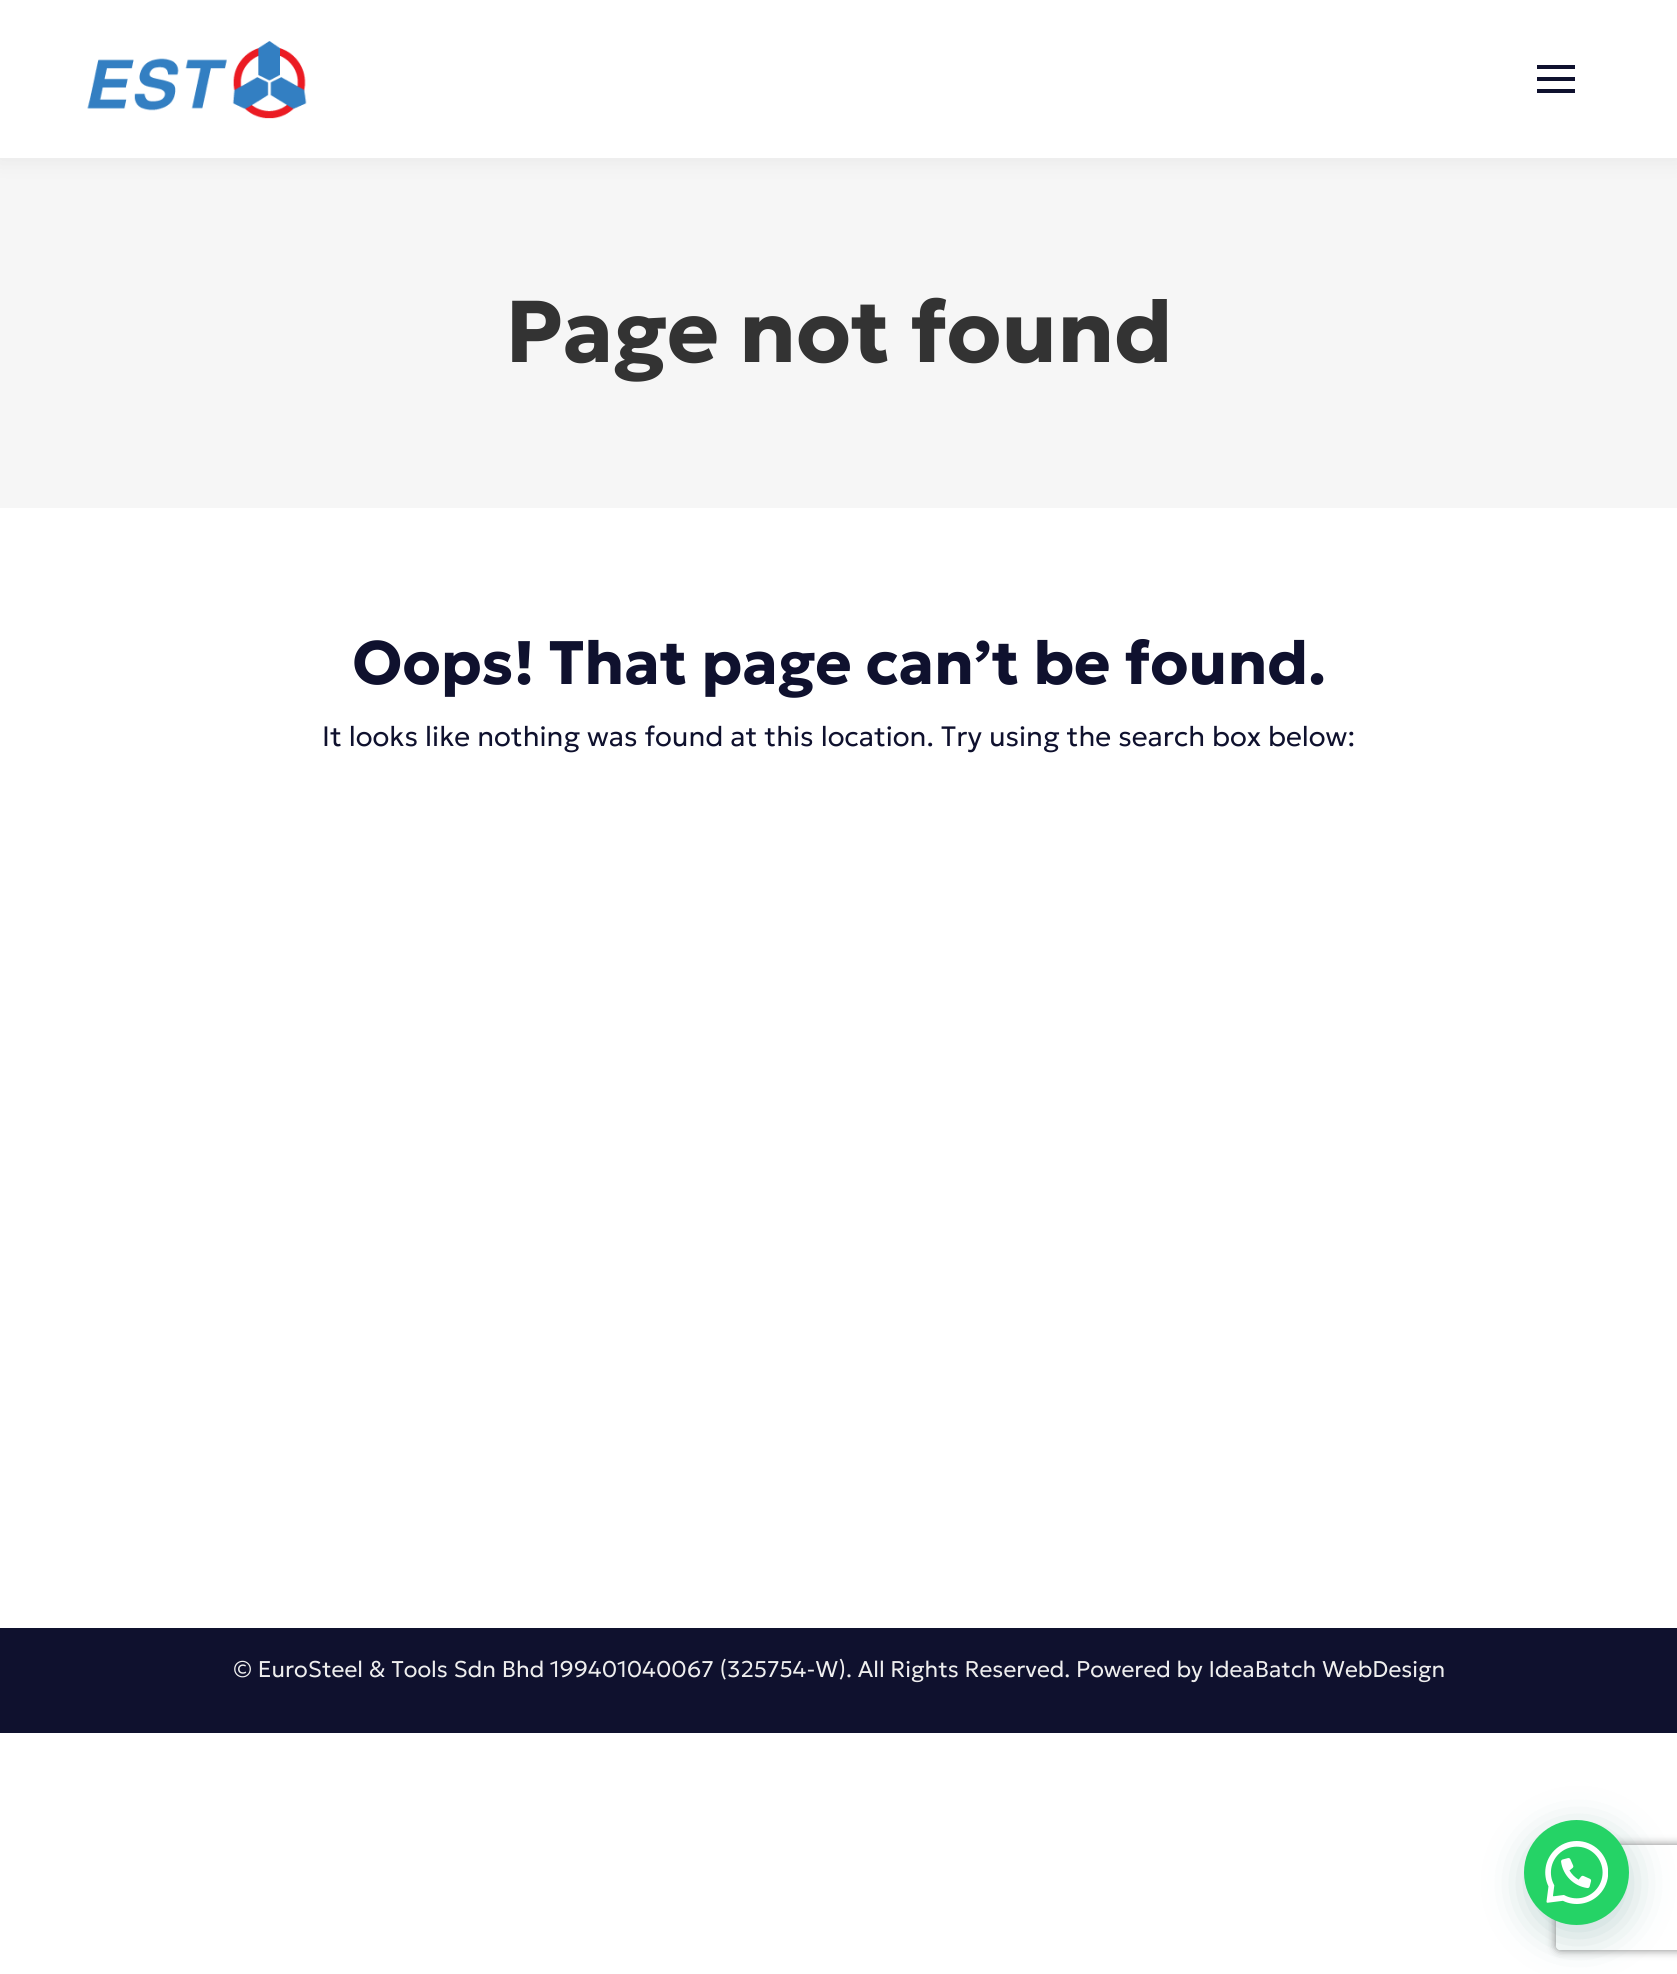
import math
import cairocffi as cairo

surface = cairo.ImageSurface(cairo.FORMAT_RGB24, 1677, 1974)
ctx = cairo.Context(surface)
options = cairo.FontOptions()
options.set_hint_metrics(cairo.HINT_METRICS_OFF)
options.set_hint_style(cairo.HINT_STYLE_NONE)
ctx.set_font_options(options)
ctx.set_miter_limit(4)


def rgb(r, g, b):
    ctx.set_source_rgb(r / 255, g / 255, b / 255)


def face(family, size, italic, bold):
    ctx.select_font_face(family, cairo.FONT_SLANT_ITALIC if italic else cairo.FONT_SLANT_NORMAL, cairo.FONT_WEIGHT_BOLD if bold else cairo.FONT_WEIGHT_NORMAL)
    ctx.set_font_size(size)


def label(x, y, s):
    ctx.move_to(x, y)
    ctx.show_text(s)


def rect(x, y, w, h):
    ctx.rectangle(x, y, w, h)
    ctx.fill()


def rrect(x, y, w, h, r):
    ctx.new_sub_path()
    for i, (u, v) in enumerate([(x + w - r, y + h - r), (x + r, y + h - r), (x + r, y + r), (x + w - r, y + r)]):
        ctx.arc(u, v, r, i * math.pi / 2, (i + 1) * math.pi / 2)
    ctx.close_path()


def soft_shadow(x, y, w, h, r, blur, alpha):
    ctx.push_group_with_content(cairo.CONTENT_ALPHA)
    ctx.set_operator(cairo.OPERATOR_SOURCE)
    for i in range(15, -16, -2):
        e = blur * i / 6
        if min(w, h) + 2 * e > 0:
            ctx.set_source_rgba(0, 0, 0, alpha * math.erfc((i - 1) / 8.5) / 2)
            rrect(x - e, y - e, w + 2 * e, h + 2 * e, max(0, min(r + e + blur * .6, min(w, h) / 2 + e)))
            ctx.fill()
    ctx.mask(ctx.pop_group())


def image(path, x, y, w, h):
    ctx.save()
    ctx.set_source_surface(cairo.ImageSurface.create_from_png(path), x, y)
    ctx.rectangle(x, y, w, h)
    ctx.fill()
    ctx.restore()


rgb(255, 255, 255)
ctx.paint()
rgb(246, 246, 246)
rect(0, 158, 1677, 350)
rgb(0, 0, 0)
soft_shadow(-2, -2, 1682, 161, 0, 13, 0.07)
rgb(255, 255, 255)
rect(0, 0, 1677, 158)
image('image0.png', 87, 41, 220, 78)
rgb(15, 17, 46)
rect(1537, 65, 38, 4)
rect(1537, 77, 38, 4)
rect(1537, 89, 38, 4)
face('Geologica', 87.5, 0, 1)
rgb(51, 51, 51)
label(505, 362, 'Page not found')
face('Geologica', 61.25, 0, 1)
rgb(15, 17, 46)
label(352, 684, 'Oops! That page can’t be found.')
face('Geologica Light', 28, 0, 0)
label(322, 746, 'It looks like nothing was found at this location. Try using the search box below:')
rect(0, 1628, 1677, 105)
face('Geologica Light', 22.75, 0, 0)
rgb(238, 238, 238)
label(233, 1677, '© EuroSteel & Tools Sdn Bhd 199401040067 (325754-W). All Rights Reserved. Powered by IdeaBatch WebDesign')
rgb(7, 94, 84)
soft_shadow(1526, 1831, 105, 105, 52.5, 21, 0.24)
ctx.save()
ctx.set_fill_rule(cairo.FILL_RULE_EVEN_ODD)
ctx.new_path()
ctx.move_to(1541, 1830)
ctx.line_to(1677, 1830)
ctx.line_to(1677, 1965)
ctx.line_to(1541, 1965)
ctx.close_path()
ctx.move_to(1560, 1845)
ctx.line_to(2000, 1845)
ctx.curve_to(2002, 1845, 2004, 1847, 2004, 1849)
ctx.line_to(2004, 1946)
ctx.curve_to(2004, 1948, 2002, 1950, 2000, 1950)
ctx.line_to(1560, 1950)
ctx.curve_to(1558, 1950, 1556, 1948, 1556, 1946)
ctx.line_to(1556, 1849)
ctx.curve_to(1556, 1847, 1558, 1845, 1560, 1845)
ctx.close_path()
ctx.clip()
rgb(128, 128, 128)
soft_shadow(1556, 1845, 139, 105, 4, 4.5, 1)
ctx.restore()
rgb(37, 211, 102)
ctx.arc(1576.5, 1872.5, 52.5, 0, 2 * math.pi)
ctx.fill()
image('image1.png', 1545, 1841, 63, 63)
surface.write_to_png('render.png')
